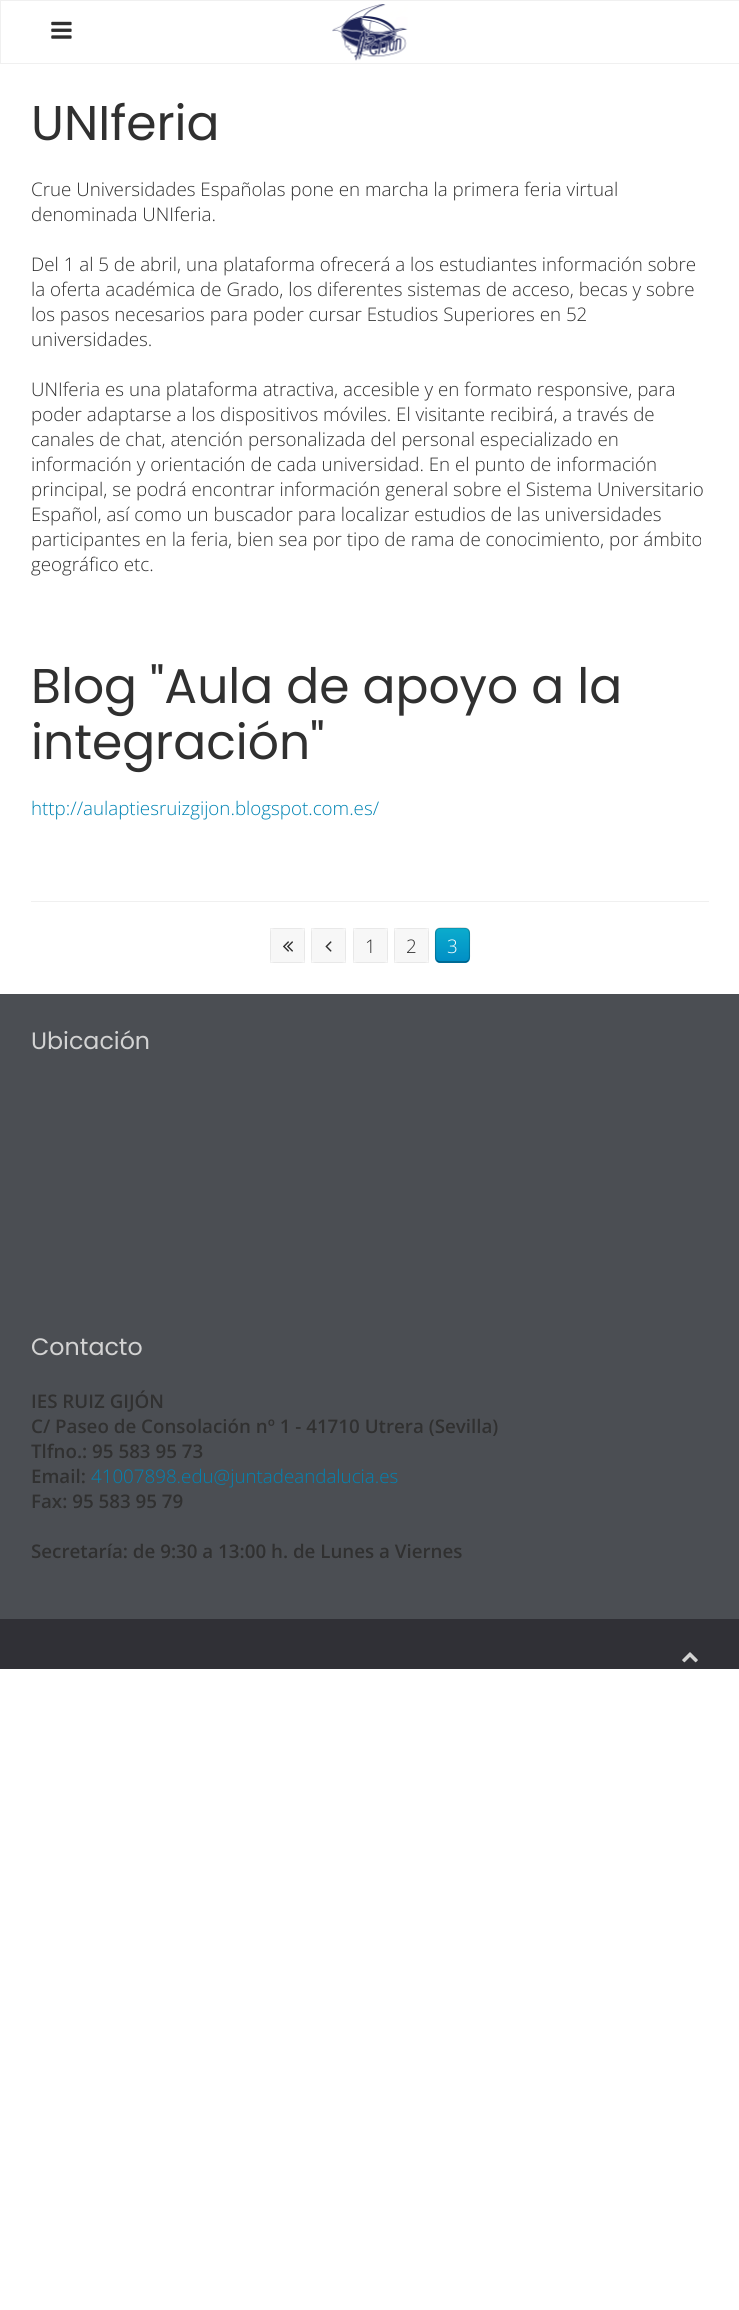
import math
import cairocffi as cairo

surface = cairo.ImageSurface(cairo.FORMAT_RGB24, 739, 2310)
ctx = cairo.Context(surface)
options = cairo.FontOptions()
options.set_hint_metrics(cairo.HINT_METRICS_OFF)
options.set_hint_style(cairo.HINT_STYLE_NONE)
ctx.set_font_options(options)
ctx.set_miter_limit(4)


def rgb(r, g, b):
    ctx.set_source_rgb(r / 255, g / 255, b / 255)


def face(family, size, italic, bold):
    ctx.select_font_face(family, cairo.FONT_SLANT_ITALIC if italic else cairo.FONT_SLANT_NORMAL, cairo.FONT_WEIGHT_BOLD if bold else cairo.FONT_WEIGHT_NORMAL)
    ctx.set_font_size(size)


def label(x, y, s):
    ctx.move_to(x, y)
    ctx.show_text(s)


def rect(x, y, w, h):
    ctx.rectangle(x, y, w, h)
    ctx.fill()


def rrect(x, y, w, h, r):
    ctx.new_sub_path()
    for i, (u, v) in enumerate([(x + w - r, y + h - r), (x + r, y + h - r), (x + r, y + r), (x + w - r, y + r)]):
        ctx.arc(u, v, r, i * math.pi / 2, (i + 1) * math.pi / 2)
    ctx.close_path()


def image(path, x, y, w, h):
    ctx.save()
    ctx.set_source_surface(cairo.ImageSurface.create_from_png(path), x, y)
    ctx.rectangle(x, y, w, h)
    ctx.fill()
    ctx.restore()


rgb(255, 255, 255)
ctx.paint()
ctx.rectangle(0.5, 0.5, 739, 63)
rgb(240, 240, 240)
ctx.set_line_width(1)
ctx.stroke()
image('image0.png', 51, 21, 21, 18)
image('image1.png', 332, 4, 76, 57)
face('Poppins', 48.75, 0, 0)
rgb(48, 48, 48)
label(31, 140, 'UNIferia')
face('Open Sans Light', 18.75, 0, 0)
label(31, 196, 'Crue Universidades Españolas pone en marcha la primera feria virtual')
label(31, 221, 'denominada UNIferia.')
label(31, 271, 'Del 1 al 5 de abril, una plataforma ofrecerá a los estudiantes información sobre')
label(31, 296, 'la oferta académica de Grado, los diferentes sistemas de acceso, becas y sobre')
label(31, 321, 'los pasos necesarios para poder cursar Estudios Superiores en 52')
label(31, 346, 'universidades.')
label(31, 396, 'UNIferia es una plataforma atractiva, accesible y en formato responsive, para')
label(31, 421, 'poder adaptarse a los dispositivos móviles. El visitante recibirá, a través de')
label(31, 446, 'canales de chat, atención personalizada del personal especializado en')
label(31, 471, 'información y orientación de cada universidad. En el punto de información')
label(31, 496, 'principal, se podrá encontrar información general sobre el Sistema Universitario')
label(31, 521, 'Español, así como un buscador para localizar estudios de las universidades')
label(31, 546, 'participantes en la feria, bien sea por tipo de rama de conocimiento, por ámbito')
label(31, 571, 'geográfico etc.')
rgb(240, 240, 240)
rect(31, 901, 678, 1)
face('Poppins', 48.75, 0, 0)
rgb(48, 48, 48)
label(31, 703, 'Blog "Aula de apoyo a la')
label(31, 759, 'integración"')
face('Open Sans Light', 18.75, 0, 0)
rgb(0, 132, 180)
label(31, 815, 'http://aulaptiesruizgijon.blogspot.com.es/')
rgb(247, 247, 247)
rrect(270, 928, 35, 35, 5)
ctx.fill()
ctx.rectangle(270.5, 928.5, 34, 34)
ctx.set_source_rgba(0, 0, 0, 0.06)
ctx.stroke()
image('image2.png', 283, 941, 10, 11)
rgb(247, 247, 247)
rrect(311, 928, 35, 35, 5)
ctx.fill()
ctx.rectangle(311.5, 928.5, 34, 34)
ctx.set_source_rgba(0, 0, 0, 0.06)
ctx.stroke()
image('image3.png', 325, 941, 7, 11)
rgb(247, 247, 247)
rrect(353, 928, 35, 35, 5)
ctx.fill()
ctx.rectangle(353.5, 928.5, 34, 34)
ctx.set_source_rgba(0, 0, 0, 0.06)
ctx.stroke()
rgb(48, 48, 48)
label(365, 953, '1')
rgb(247, 247, 247)
rrect(394, 928, 35, 35, 5)
ctx.fill()
ctx.rectangle(394.5, 928.5, 34, 34)
ctx.set_source_rgba(0, 0, 0, 0.06)
ctx.stroke()
rgb(48, 48, 48)
label(406, 953, '2')
gradient = cairo.LinearGradient(453, 928, 453, 963)
gradient.add_color_stop_rgba(0, 0.043, 0.675, 0.804, 1)
gradient.add_color_stop_rgba(1, 0, 0.553, 0.773, 1)
ctx.set_source(gradient)
rrect(435, 928, 35, 35, 5)
ctx.fill()
ctx.new_path()
ctx.move_to(468, 960.5)
ctx.curve_to(467.5, 961.5, 466, 962, 465, 962)
ctx.line_to(440, 962)
ctx.curve_to(439, 962, 437.5, 961.5, 437, 960.5)
rgb(0, 85, 118)
ctx.set_line_width(1.2)
ctx.stroke()
ctx.new_path()
ctx.move_to(437, 960.5)
ctx.curve_to(435, 958.5, 435.5, 955.5, 435.5, 953.5)
ctx.line_to(435.5, 945)
ctx.curve_to(435.5, 926, 433.5, 928, 452.5, 928)
ctx.curve_to(471.5, 928, 469.5, 926, 469.5, 945)
ctx.line_to(469.5, 953.5)
ctx.curve_to(469.5, 955.5, 470, 958.5, 468, 960.5)
ctx.set_source_rgba(0, 0, 0, 0.2)
ctx.stroke()
rgb(255, 255, 255)
label(447, 953, '3')
rgb(75, 78, 83)
rect(0, 994, 739, 625)
face('Poppins', 23.75, 0, 0)
rgb(211, 211, 211)
label(31, 1049, 'Ubicación')
label(31, 1355, 'Contacto')
face('Open Sans SemiBold', 18.75, 0, 0)
rgb(48, 48, 48)
label(31, 1408, 'IES RUIZ GIJÓN')
label(31, 1433, 'C/ Paseo de Consolación nº 1 - 41710 Utrera (Sevilla)')
label(31, 1458, 'Tlfno.: 95 583 95 73')
label(31, 1483, 'Email:')
face('Open Sans Light', 18.75, 0, 0)
rgb(0, 132, 180)
label(91, 1483, '41007898.edu@juntadeandalucia.es')
face('Open Sans SemiBold', 18.75, 0, 0)
rgb(48, 48, 48)
label(31, 1508, 'Fax: 95 583 95 79')
label(31, 1558, 'Secretaría: de 9:30 a 13:00 h. de Lunes a Viernes')
rgb(48, 48, 54)
rect(0, 1619, 739, 50)
image('image4.png', 682, 1652, 16, 11)
surface.write_to_png('render.png')
